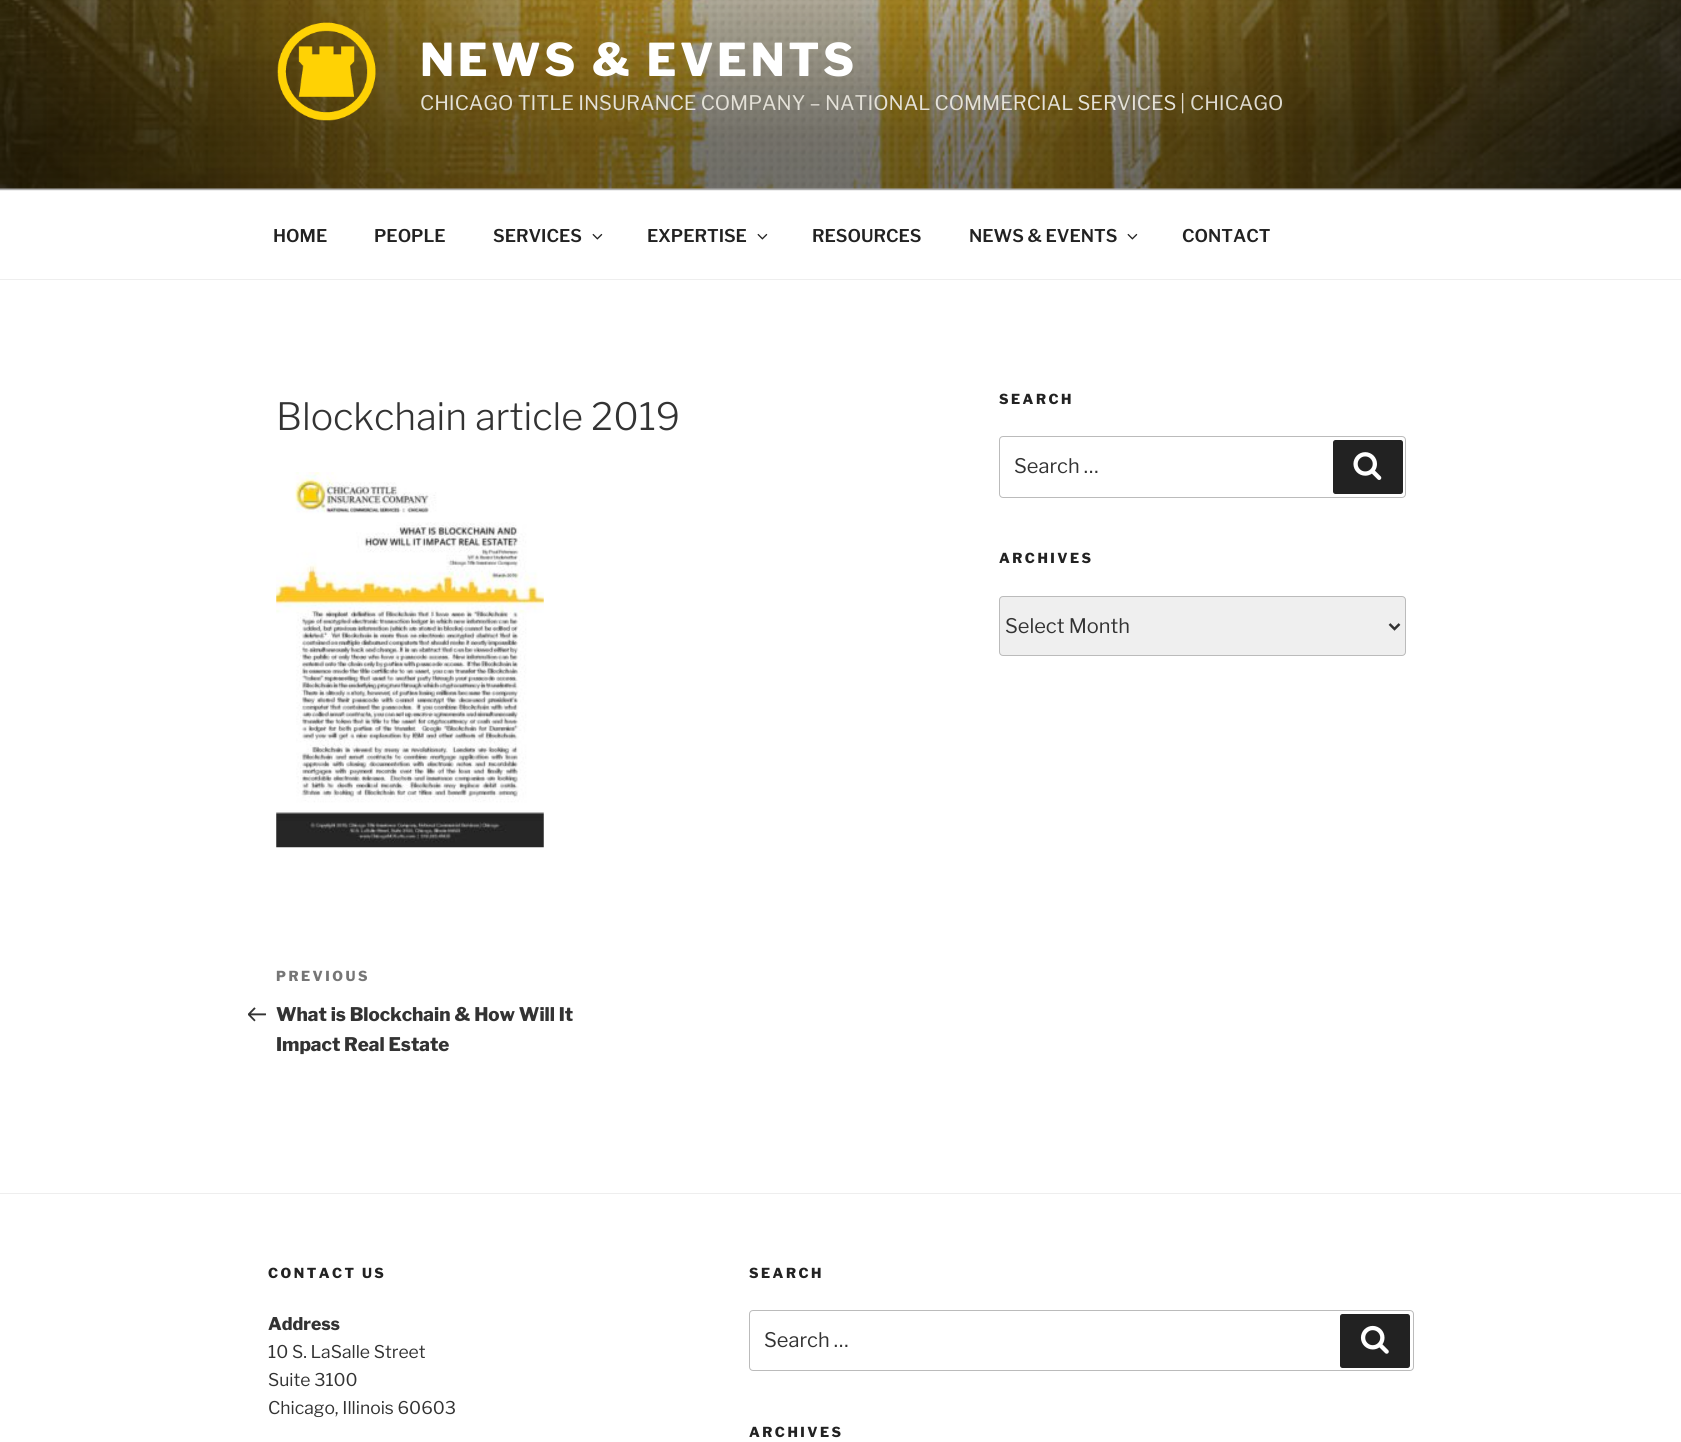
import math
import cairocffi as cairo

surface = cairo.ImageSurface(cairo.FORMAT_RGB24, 1681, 1442)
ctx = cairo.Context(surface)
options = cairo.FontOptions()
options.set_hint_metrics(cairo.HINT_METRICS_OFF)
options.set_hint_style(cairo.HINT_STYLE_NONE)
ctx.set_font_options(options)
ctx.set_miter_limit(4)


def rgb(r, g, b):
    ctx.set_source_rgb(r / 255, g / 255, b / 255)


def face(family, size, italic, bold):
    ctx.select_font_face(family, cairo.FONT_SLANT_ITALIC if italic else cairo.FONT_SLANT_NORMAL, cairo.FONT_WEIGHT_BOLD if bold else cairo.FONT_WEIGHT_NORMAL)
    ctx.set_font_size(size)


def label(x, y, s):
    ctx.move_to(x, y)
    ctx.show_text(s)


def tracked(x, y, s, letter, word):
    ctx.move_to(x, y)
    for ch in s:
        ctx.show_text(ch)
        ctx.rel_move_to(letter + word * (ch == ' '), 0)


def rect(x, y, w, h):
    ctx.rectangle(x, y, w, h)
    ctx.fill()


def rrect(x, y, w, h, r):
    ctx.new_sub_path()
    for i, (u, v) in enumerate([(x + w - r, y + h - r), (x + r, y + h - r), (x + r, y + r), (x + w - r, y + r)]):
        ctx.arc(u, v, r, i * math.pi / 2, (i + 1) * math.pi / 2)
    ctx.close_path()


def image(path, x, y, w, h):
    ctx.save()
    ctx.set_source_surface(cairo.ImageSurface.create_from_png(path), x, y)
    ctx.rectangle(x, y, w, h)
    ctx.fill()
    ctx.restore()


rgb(255, 255, 255)
ctx.paint()
rgb(250, 250, 250)
rect(0, 188, 1681, 2)
image('image0.png', 0, 0, 1681, 189)
gradient = cairo.LinearGradient(841, -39, 841, 190)
gradient.add_color_stop_rgba(0, 0, 0, 0, 0)
gradient.add_color_stop_rgba(0.75, 0, 0, 0, 0.3)
gradient.add_color_stop_rgba(1, 0, 0, 0, 0.3)
ctx.set_source(gradient)
rect(0, 0, 1681, 190)
image('image1.png', 277, 22, 99, 99)
face('Libre Franklin ExtraBold', 45, 0, 0)
rgb(255, 255, 255)
tracked(420, 76, 'NEWS & EVENTS', 3.6, 0)
face('Libre Franklin', 20, 0, 0)
rgb(228, 225, 216)
label(420, 110, 'CHICAGO TITLE INSURANCE COMPANY – NATIONAL COMMERCIAL SERVICES')
rgb(222, 218, 208)
label(1180, 110, '|')
label(1190, 110, 'CHICAGO')
rgb(238, 238, 238)
rect(0, 190, 1681, 1)
rect(0, 279, 1681, 1)
face('Libre Franklin SemiBold', 17.5, 0, 0)
rgb(34, 34, 34)
label(273, 242, 'HOME')
label(374, 242, 'PEOPLE')
label(493, 242, 'SERVICES')
image('image2.png', 592, 233, 11, 7)
label(647, 242, 'EXPERTISE')
image('image2.png', 757, 233, 11, 7)
label(812, 242, 'RESOURCES')
label(969, 242, 'NEWS & EVENTS')
image('image2.png', 1127, 233, 11, 7)
label(1182, 242, 'CONTACT')
face('Libre Franklin Light', 37.5, 0, 0)
rgb(51, 51, 51)
label(276, 430, 'Blockchain article 2019')
image('image3.png', 276, 472, 268, 376)
face('Libre Franklin ExtraBold', 13.75, 0, 0)
rgb(118, 118, 118)
tracked(276, 981, 'PREVIOUS', 2.5, 0)
image('image4.png', 248, 1007, 18, 15)
face('Libre Franklin ExtraBold', 18.75, 0, 0)
rgb(51, 51, 51)
label(276, 1021, 'What is Blockchain & How Will It')
label(276, 1051, 'Impact Real Estate')
face('Libre Franklin ExtraBold', 13.75, 0, 0)
rgb(34, 34, 34)
tracked(999, 404, 'SEARCH', 2.5, 0)
rrect(999.5, 436.5, 406, 61, 3.5)
rgb(187, 187, 187)
ctx.set_line_width(1)
ctx.stroke()
face('Libre Franklin', 20, 0, 0)
rgb(51, 51, 51)
label(1014, 473, 'Search …')
rgb(34, 34, 34)
rrect(1333, 440, 70, 54, 2.5)
ctx.fill()
image('image5.png', 1353, 452, 29, 28)
face('Libre Franklin ExtraBold', 13.75, 0, 0)
tracked(999, 563, 'ARCHIVES', 2.5, 0)
rgb(239, 239, 239)
rrect(999.5, 596.5, 406, 59, 3.5)
ctx.fill_preserve()
rgb(187, 187, 187)
ctx.stroke()
ctx.new_path()
ctx.move_to(1389.5, 624)
ctx.line_to(1394.5, 629)
ctx.line_to(1399.5, 624)
rgb(51, 51, 51)
ctx.set_line_width(2.5)
ctx.stroke()
face('Libre Franklin', 20, 0, 0)
label(1005, 633, 'Select Month')
rgb(238, 238, 238)
rect(0, 1193, 1681, 1)
face('Libre Franklin ExtraBold', 13.75, 0, 0)
rgb(34, 34, 34)
tracked(268, 1278, 'CONTACT US', 2.5, 0)
face('Libre Franklin ExtraBold', 17.5, 0, 0)
rgb(51, 51, 51)
label(268, 1330, 'Address')
face('Libre Franklin', 17.5, 0, 0)
label(268, 1358, '10 S. LaSalle Street')
label(268, 1386, 'Suite 3100')
label(268, 1414, 'Chicago, Illinois 60603')
face('Libre Franklin ExtraBold', 13.75, 0, 0)
rgb(34, 34, 34)
tracked(749, 1278, 'SEARCH', 2.5, 0)
rrect(749.5, 1310.5, 664, 60, 3.5)
rgb(187, 187, 187)
ctx.set_line_width(1)
ctx.stroke()
face('Libre Franklin', 20, 0, 0)
rgb(51, 51, 51)
label(764, 1347, 'Search …')
rgb(34, 34, 34)
rrect(1340, 1314, 70, 54, 2.5)
ctx.fill()
image('image6.png', 1360, 1325, 29, 29)
face('Libre Franklin ExtraBold', 13.75, 0, 0)
tracked(749, 1437, 'ARCHIVES', 2.5, 0)
surface.write_to_png('render.png')
